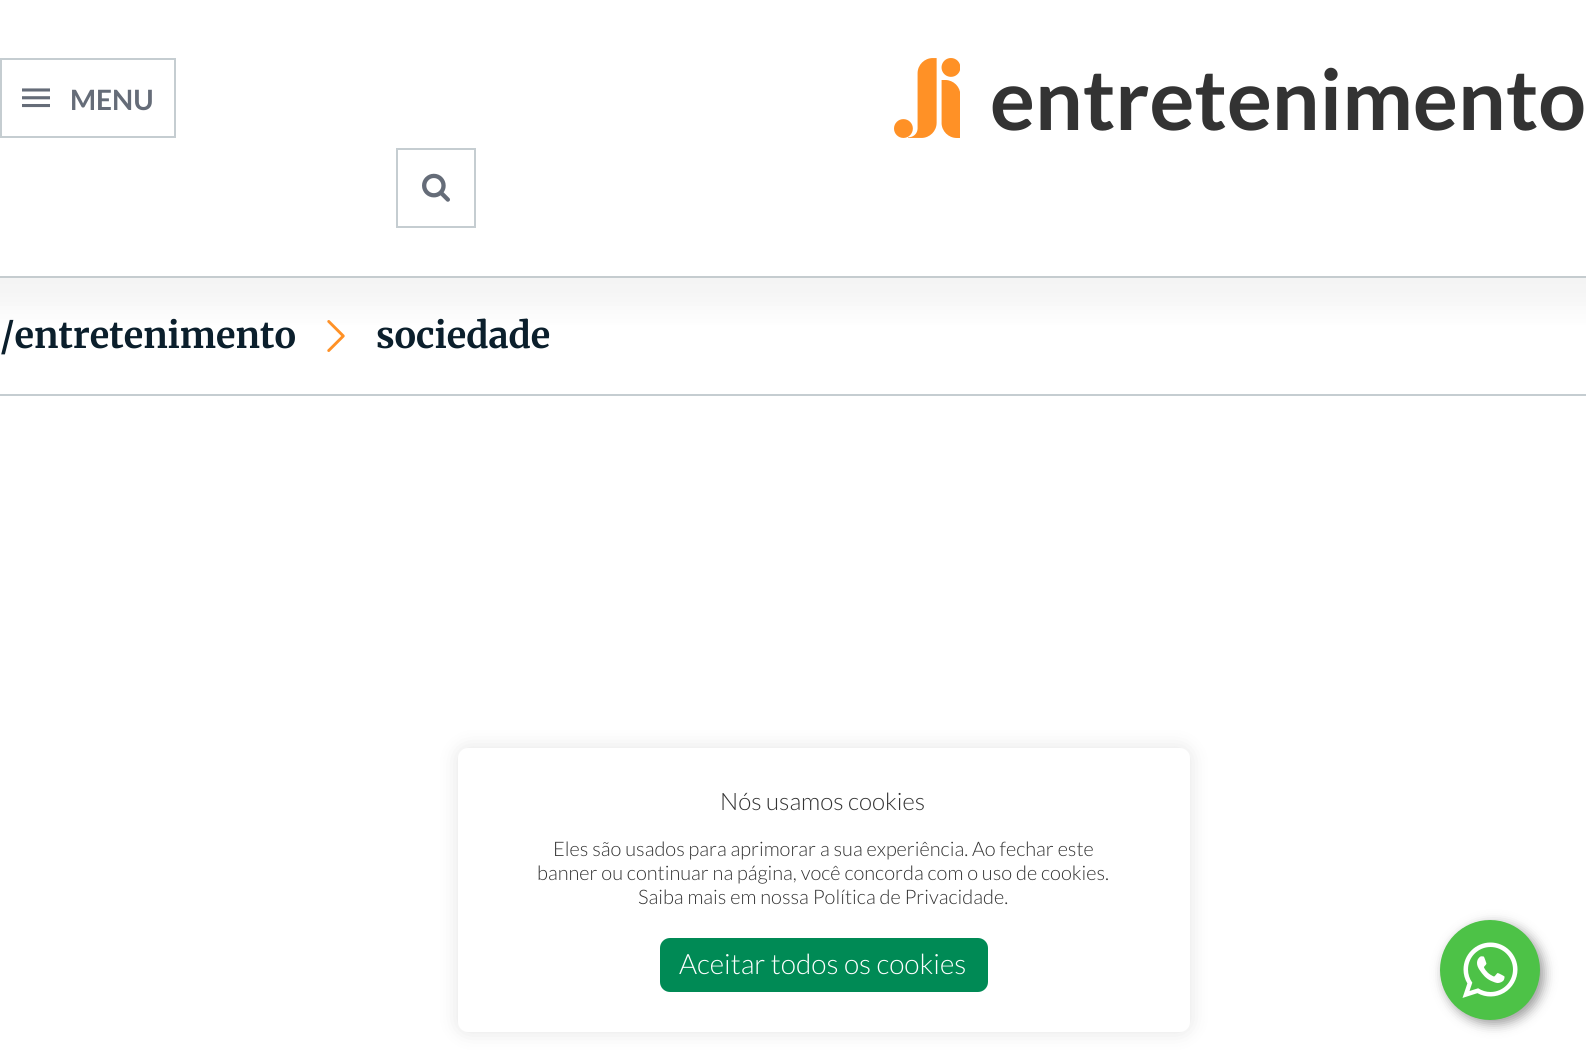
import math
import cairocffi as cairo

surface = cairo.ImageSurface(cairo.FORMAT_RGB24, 1586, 1061)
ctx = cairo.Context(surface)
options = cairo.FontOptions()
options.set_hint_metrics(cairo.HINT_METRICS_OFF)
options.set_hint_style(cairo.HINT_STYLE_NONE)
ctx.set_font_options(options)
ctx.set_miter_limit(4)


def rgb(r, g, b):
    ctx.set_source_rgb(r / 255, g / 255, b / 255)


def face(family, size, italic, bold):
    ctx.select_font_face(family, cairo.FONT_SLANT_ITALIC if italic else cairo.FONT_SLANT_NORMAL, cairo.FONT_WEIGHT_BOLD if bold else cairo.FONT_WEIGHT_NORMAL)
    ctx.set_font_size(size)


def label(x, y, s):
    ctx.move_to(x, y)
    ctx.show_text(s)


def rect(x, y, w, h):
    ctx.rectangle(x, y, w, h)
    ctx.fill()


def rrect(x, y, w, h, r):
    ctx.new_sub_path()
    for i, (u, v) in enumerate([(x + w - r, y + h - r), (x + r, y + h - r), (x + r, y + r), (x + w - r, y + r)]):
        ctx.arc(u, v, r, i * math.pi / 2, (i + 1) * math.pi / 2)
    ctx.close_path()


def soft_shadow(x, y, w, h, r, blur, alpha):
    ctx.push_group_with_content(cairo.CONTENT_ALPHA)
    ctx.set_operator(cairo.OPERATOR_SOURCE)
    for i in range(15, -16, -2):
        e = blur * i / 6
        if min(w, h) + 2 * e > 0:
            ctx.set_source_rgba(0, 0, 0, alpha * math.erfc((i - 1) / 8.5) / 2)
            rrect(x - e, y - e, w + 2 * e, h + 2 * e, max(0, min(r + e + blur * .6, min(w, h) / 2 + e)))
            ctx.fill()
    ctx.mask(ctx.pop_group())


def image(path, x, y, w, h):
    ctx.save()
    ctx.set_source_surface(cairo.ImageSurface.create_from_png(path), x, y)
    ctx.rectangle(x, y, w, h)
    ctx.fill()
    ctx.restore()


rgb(255, 255, 255)
ctx.paint()
rgb(197, 205, 209)
rect(0, 276, 1586, 2)
image('image3.png', 327, 320, 18, 32)
ctx.save()
ctx.rectangle(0, 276, 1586, 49)
ctx.clip()
rgb(200, 200, 200)
soft_shadow(-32, -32, 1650, 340, 0, 13, 0.2)
ctx.restore()
ctx.rectangle(1, 59, 174, 78)
ctx.stroke()
image('image0.png', 22, 88, 28, 20)
face('Lato', 28, 0, 1)
rgb(101, 108, 120)
label(70, 110, 'MENU')
image('image1.png', 894, 58, 66, 80)
face('Lato', 84, 0, 1)
rgb(51, 51, 51)
label(990, 130, 'entretenimento')
ctx.rectangle(397, 149, 78, 78)
rgb(197, 205, 209)
ctx.stroke()
image('image2.png', 422, 173, 28, 29)
rect(0, 394, 1586, 2)
face('Merriweather', 36, 0, 1)
rgb(11, 31, 44)
label(0, 348, '/entretenimento')
label(376, 348, 'sociedade')
rgb(0, 0, 0)
soft_shadow(458, 748, 732, 284, 10, 10, 0.11)
rgb(255, 255, 255)
rrect(458, 748, 732, 284, 10)
ctx.fill()
face('Lato Light', 24, 0, 0)
rgb(51, 51, 51)
label(720, 810, 'Nós usamos cookies')
face('Lato Light', 20, 0, 0)
label(553, 856, 'Eles são usados para aprimorar a sua experiência. Ao fechar este')
label(537, 880, 'banner ou continuar na página, você concorda com o uso de cookies.')
label(638, 904, 'Saiba mais em nossa Política de Privacidade.')
rgb(0, 138, 85)
rrect(660, 938, 328, 54, 10)
ctx.fill()
face('Lato Light', 28, 0, 0)
rgb(255, 255, 255)
label(679, 974, 'Aceitar todos os cookies')
rgb(0, 0, 0)
soft_shadow(1444, 924, 100, 100, 50, 6, 0.4)
rgb(77, 194, 71)
ctx.arc(1490, 970, 50, 0, 2 * math.pi)
ctx.fill()
image('image4.png', 1462, 942, 56, 56)
surface.write_to_png('render.png')
